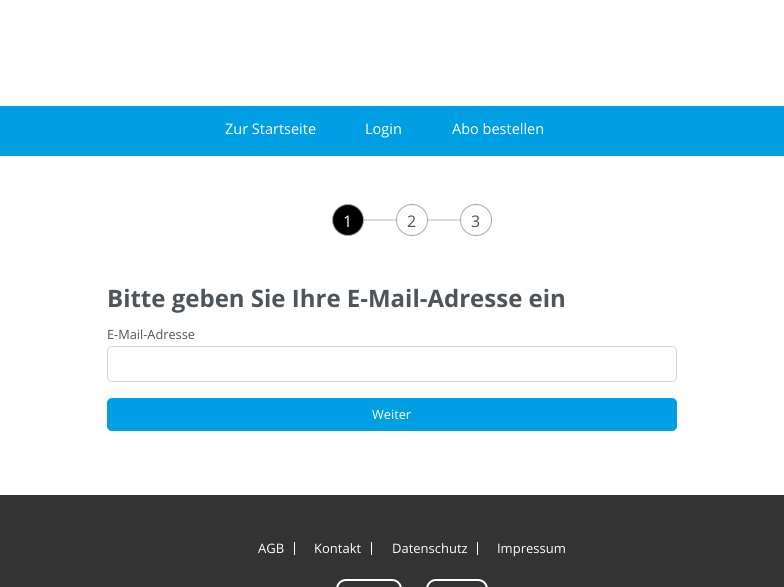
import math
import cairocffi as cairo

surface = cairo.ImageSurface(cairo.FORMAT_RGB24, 784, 587)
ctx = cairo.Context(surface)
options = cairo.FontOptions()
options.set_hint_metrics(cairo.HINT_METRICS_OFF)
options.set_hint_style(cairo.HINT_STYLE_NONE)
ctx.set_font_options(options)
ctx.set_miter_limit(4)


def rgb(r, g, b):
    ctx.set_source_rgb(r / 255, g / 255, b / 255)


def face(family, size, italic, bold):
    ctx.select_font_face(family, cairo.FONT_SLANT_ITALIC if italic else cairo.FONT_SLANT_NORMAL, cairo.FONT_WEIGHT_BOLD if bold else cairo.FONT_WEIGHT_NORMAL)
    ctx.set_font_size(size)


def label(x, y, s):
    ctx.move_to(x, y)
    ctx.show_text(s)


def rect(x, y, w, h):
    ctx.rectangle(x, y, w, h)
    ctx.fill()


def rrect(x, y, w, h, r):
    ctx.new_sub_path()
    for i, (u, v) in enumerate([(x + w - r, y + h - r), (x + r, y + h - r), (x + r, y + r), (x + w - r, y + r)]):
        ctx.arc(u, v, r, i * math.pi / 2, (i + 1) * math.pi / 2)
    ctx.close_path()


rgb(255, 255, 255)
ctx.paint()
rgb(0, 159, 227)
rect(0, 106, 784, 50)
face('Open Sans', 14.5, 0, 0)
rgb(255, 255, 255)
label(225, 134, 'Zur Startseite')
label(365, 134, 'Login')
label(452, 134, 'Abo bestellen')
rgb(0, 0, 0)
ctx.new_path()
ctx.arc(348, 220, 15.5, 0, 2 * math.pi)
ctx.fill_preserve()
rgb(168, 168, 168)
ctx.set_line_width(1)
ctx.stroke()
face('Open Sans', 16, 0, 0)
rgb(255, 255, 255)
label(343, 227, '1')
ctx.new_path()
ctx.arc(412, 220, 15.5, 0, 2 * math.pi)
rgb(168, 168, 168)
ctx.stroke()
rgb(220, 220, 220)
rect(364, 219, 32, 2)
rgb(77, 85, 90)
label(407, 227, '2')
ctx.new_path()
ctx.arc(476, 220, 15.5, 0, 2 * math.pi)
rgb(168, 168, 168)
ctx.stroke()
rgb(220, 220, 220)
rect(428, 219, 32, 2)
rgb(77, 85, 90)
label(471, 227, '3')
face('Open Sans', 24, 0, 1)
label(107, 307, 'Bitte geben Sie Ihre E-Mail-Adresse ein')
face('Open Sans', 12.75, 0, 0)
label(107, 339, 'E-Mail-Adresse')
rrect(107.5, 346.5, 569, 35, 4.5)
rgb(206, 212, 218)
ctx.stroke()
rgb(0, 159, 227)
rrect(107.5, 398.5, 569, 32, 4.5)
ctx.fill_preserve()
ctx.stroke()
rgb(255, 255, 255)
label(372, 419, 'Weiter')
rgb(51, 51, 51)
rect(0, 495, 784, 92)
face('Open Sans', 13, 0, 0)
rgb(255, 255, 255)
label(258, 553, 'AGB')
rect(294, 542, 1, 13)
label(314, 553, 'Kontakt')
rect(371, 542, 1, 13)
label(392, 553, 'Datenschutz')
rect(477, 542, 1, 13)
label(497, 553, 'Impressum')
rrect(337, 580, 64, 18, 9)
ctx.set_line_width(2)
ctx.stroke()
rrect(427, 580, 60, 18, 9)
ctx.stroke()
surface.write_to_png('render.png')
